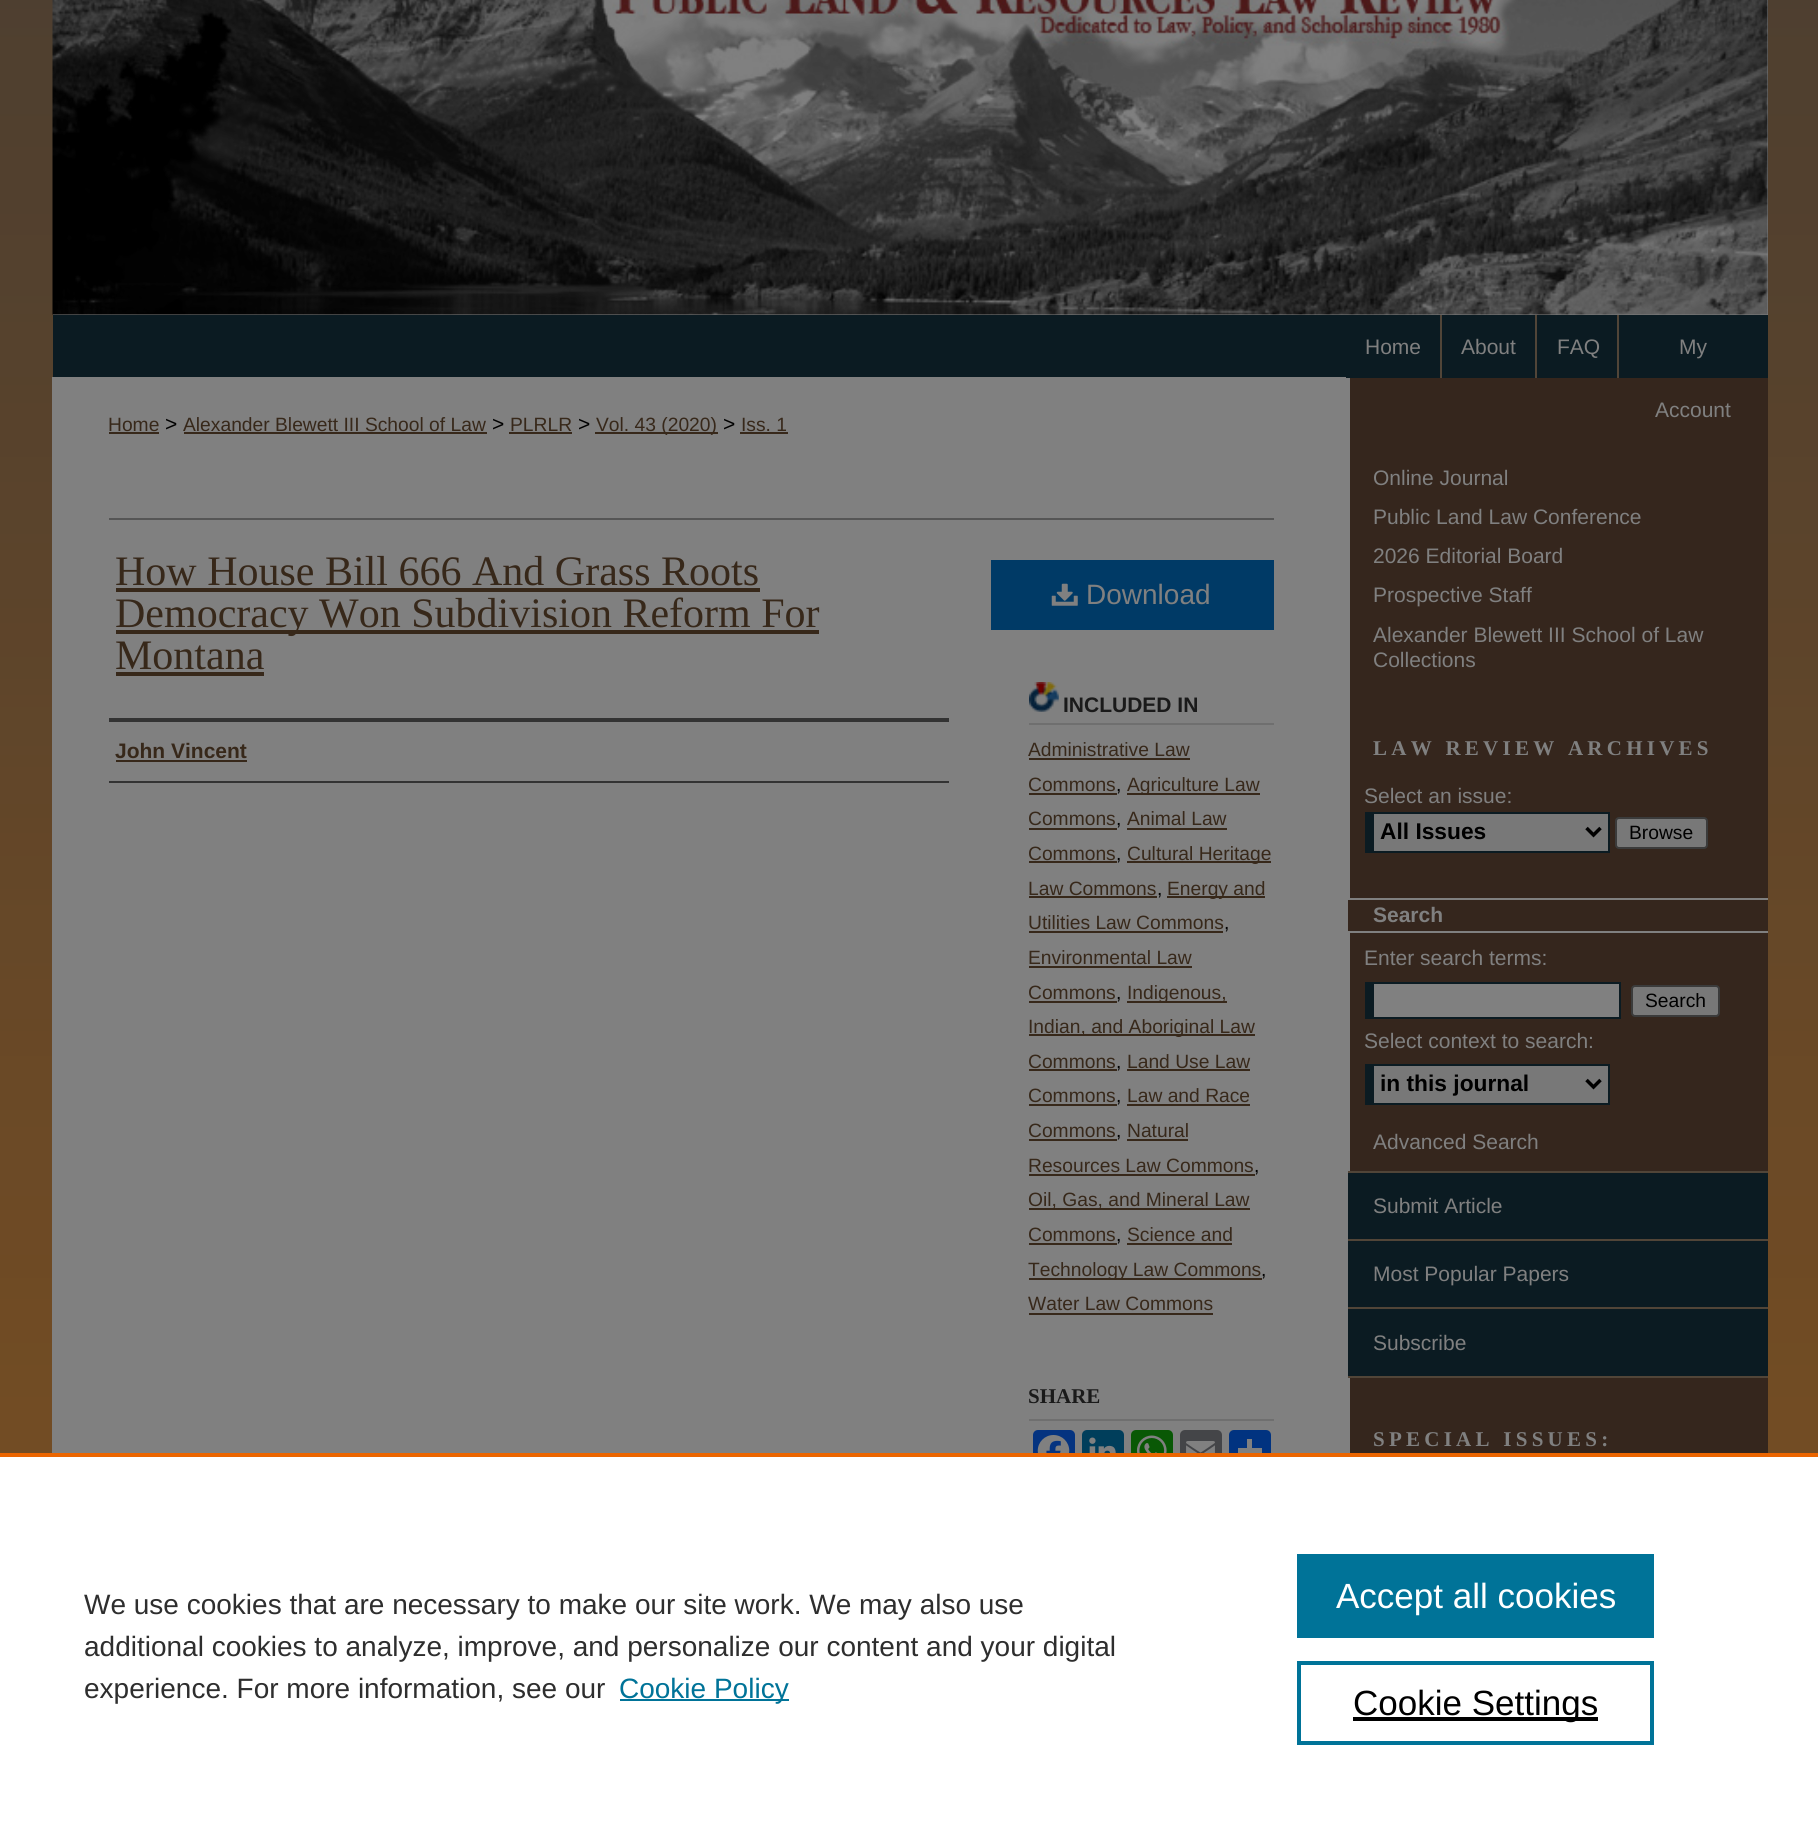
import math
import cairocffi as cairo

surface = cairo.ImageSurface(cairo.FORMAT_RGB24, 1818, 1837)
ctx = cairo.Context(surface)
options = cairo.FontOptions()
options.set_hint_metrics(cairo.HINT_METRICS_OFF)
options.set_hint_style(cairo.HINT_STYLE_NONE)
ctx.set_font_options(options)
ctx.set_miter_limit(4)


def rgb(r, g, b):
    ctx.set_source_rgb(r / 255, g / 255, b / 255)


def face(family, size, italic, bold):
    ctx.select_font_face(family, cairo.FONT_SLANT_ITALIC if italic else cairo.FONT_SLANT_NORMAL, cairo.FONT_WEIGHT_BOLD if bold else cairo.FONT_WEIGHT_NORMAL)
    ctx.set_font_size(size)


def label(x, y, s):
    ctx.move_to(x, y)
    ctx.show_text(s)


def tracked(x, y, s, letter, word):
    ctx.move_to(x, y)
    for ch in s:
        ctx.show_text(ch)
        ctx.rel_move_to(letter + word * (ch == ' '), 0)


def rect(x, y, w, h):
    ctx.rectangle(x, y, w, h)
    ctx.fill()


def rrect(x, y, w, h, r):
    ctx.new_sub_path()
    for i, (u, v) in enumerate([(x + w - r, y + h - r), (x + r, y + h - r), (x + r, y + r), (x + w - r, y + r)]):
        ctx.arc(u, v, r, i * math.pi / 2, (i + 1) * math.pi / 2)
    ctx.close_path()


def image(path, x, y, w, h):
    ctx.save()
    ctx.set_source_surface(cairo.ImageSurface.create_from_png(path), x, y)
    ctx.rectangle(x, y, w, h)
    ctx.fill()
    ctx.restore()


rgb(255, 255, 255)
ctx.paint()
image('image0.png', 0, 0, 1818, 1453)
rgb(128, 128, 128)
rect(53, 0, 1715, 315)
image('image1.png', 52, 0, 1716, 315)
rgb(11, 27, 34)
rect(53, 315, 1715, 63)
rgb(128, 128, 128)
rect(52, 377, 1298, 1076)
rgb(11, 27, 34)
rect(1346, 377, 4, 1)
rgb(81, 69, 56)
rect(1440, 315, 2, 63)
face('Liberation Sans', 21, 0, 0)
rgb(128, 128, 128)
label(1365, 354, 'Home')
rgb(81, 69, 56)
rect(1535, 315, 2, 63)
rgb(128, 128, 128)
label(1461, 354, 'About')
rgb(81, 69, 56)
rect(1617, 315, 2, 63)
rgb(128, 128, 128)
label(1557, 354, 'FAQ')
label(1679, 354, 'My')
rgb(53, 38, 29)
rect(1350, 378, 418, 1075)
rgb(128, 128, 128)
label(1655, 417, 'Account')
face('Liberation Sans', 19.25, 0, 0)
rgb(55, 40, 26)
label(108, 431, 'Home')
rect(109, 432, 50, 2)
face('Liberation Sans', 21, 0, 0)
rgb(0, 0, 0)
label(165, 431, '>')
face('Liberation Sans', 19.25, 0, 0)
rgb(55, 40, 26)
label(183, 431, 'Alexander Blewett III School of Law')
rect(184, 432, 303, 2)
face('Liberation Sans', 21, 0, 0)
rgb(0, 0, 0)
label(492, 431, '>')
face('Liberation Sans', 19.25, 0, 0)
rgb(55, 40, 26)
label(510, 431, 'PLRLR')
rect(509, 432, 63, 2)
face('Liberation Sans', 21, 0, 0)
rgb(0, 0, 0)
label(578, 431, '>')
rgb(55, 40, 26)
rect(595, 432, 123, 2)
face('Liberation Sans', 19.25, 0, 0)
label(596, 431, 'Vol. 43 (2020)')
face('Liberation Sans', 21, 0, 0)
rgb(0, 0, 0)
label(723, 431, '>')
face('Liberation Sans', 19.25, 0, 0)
rgb(55, 40, 26)
label(741, 431, 'Iss. 1')
rect(740, 432, 48, 2)
rgb(85, 85, 85)
rect(109, 518, 1165, 2)
face('Liberation Serif', 42, 0, 0)
rgb(55, 40, 26)
label(115, 585, 'How House Bill 666 And Grass Roots')
rect(116, 588, 644, 4)
rect(116, 630, 703, 4)
label(115, 627, 'Democracy Won Subdivision Reform For')
label(115, 669, 'Montana')
rect(116, 672, 148, 4)
rgb(51, 51, 51)
rect(109, 718, 840, 4)
rect(109, 781, 840, 2)
face('Liberation Sans', 21, 0, 1)
rgb(55, 40, 26)
label(115, 758, 'John Vincent')
rect(116, 760, 131, 2)
rgb(0, 58, 102)
rect(991, 560, 283, 70)
image('image2.png', 1051, 583, 27, 23)
face('Liberation Sans', 28, 0, 0)
rgb(128, 128, 128)
label(1086, 604, 'Download')
image('image3.png', 1029, 682, 30, 30)
rgb(111, 111, 111)
rect(1029, 723, 245, 2)
face('Liberation Sans', 21, 0, 1)
rgb(26, 26, 26)
label(1063, 712, 'INCLUDED IN')
face('Liberation Sans', 19.25, 0, 0)
rgb(55, 40, 26)
label(1028, 756, 'Administrative Law')
rect(1029, 758, 161, 2)
label(1028, 791, 'Commons')
rect(1029, 793, 88, 2)
rgb(0, 0, 0)
label(1116, 791, ',')
rgb(55, 40, 26)
rect(1127, 793, 133, 2)
label(1127, 791, 'Agriculture Law')
label(1028, 825, 'Commons')
rect(1029, 828, 88, 2)
rgb(0, 0, 0)
label(1116, 825, ',')
rgb(55, 40, 26)
label(1127, 825, 'Animal Law')
rect(1127, 828, 100, 2)
label(1028, 860, 'Commons')
rect(1029, 861, 88, 2)
rgb(0, 0, 0)
label(1116, 860, ',')
rgb(55, 40, 26)
rect(1127, 861, 144, 2)
label(1127, 860, 'Cultural Heritage')
label(1028, 895, 'Law Commons')
rect(1029, 896, 128, 2)
rgb(0, 0, 0)
label(1157, 895, ',')
rgb(55, 40, 26)
rect(1167, 896, 98, 2)
label(1167, 895, 'Energy and')
label(1028, 929, 'Utilities Law Commons')
rect(1029, 931, 194, 2)
rgb(0, 0, 0)
label(1224, 929, ',')
rgb(55, 40, 26)
label(1028, 964, 'Environmental Law')
rect(1029, 966, 163, 2)
label(1028, 999, 'Commons')
rect(1029, 1001, 88, 2)
rgb(0, 0, 0)
label(1116, 999, ',')
rgb(55, 40, 26)
rect(1127, 1001, 100, 2)
label(1127, 999, 'Indigenous,')
rect(1029, 1034, 226, 2)
label(1028, 1033, 'Indian, and Aboriginal Law')
label(1028, 1068, 'Commons')
rect(1029, 1069, 88, 2)
rgb(0, 0, 0)
label(1116, 1068, ',')
rgb(55, 40, 26)
label(1127, 1068, 'Land Use Law')
rect(1127, 1069, 123, 2)
label(1028, 1102, 'Commons')
rect(1029, 1104, 88, 2)
rgb(0, 0, 0)
label(1116, 1102, ',')
rgb(55, 40, 26)
label(1127, 1102, 'Law and Race')
rect(1127, 1104, 123, 2)
label(1028, 1137, 'Commons')
rect(1029, 1139, 88, 2)
rgb(0, 0, 0)
label(1116, 1137, ',')
rgb(55, 40, 26)
label(1127, 1137, 'Natural')
rect(1127, 1139, 61, 2)
label(1028, 1172, 'Resources Law Commons')
rect(1029, 1174, 226, 2)
rgb(0, 0, 0)
label(1254, 1172, ',')
rgb(55, 40, 26)
rect(1029, 1208, 221, 2)
label(1028, 1206, 'Oil, Gas, and Mineral Law')
label(1028, 1241, 'Commons')
rect(1029, 1243, 88, 2)
rgb(0, 0, 0)
label(1116, 1241, ',')
rgb(55, 40, 26)
label(1127, 1241, 'Science and')
rect(1127, 1243, 105, 2)
rect(1029, 1278, 233, 2)
label(1028, 1276, 'Technology Law Commons')
rgb(0, 0, 0)
label(1261, 1276, ',')
rgb(55, 40, 26)
label(1028, 1310, 'Water Law Commons')
rect(1029, 1313, 184, 2)
rgb(111, 111, 111)
rect(1029, 1419, 245, 2)
face('Liberation Serif', 21, 0, 1)
rgb(26, 26, 26)
label(1028, 1403, 'SHARE')
rgb(4, 51, 128)
rrect(1033, 1430, 42, 42, 5)
ctx.fill()
image('image4.png', 1037, 1435, 33, 18)
rgb(0, 62, 91)
rrect(1082, 1430, 42, 42, 5)
ctx.fill()
image('image5.png', 1089, 1437, 27, 16)
rgb(9, 88, 5)
rrect(1131, 1430, 42, 42, 5)
ctx.fill()
image('image6.png', 1136, 1435, 31, 18)
rgb(68, 69, 72)
rrect(1180, 1430, 42, 42, 5)
ctx.fill()
image('image7.png', 1186, 1441, 29, 12)
rgb(1, 51, 128)
rrect(1229, 1430, 42, 42, 5)
ctx.fill()
rgb(128, 128, 128)
rect(1247, 1439, 5, 9)
rect(1238, 1448, 24, 5)
face('Liberation Sans', 21, 0, 0)
label(1373, 485, 'Online Journal')
label(1373, 524, 'Public Land Law Conference')
label(1373, 563, '2026 Editorial Board')
label(1373, 602, 'Prospective Staff')
label(1373, 642, 'Alexander Blewett III School of Law')
label(1373, 667, 'Collections')
face('Liberation Serif', 21, 0, 1)
tracked(1373, 755, 'LAW REVIEW ARCHIVES', 4.25, 0)
face('Liberation Sans', 21, 0, 0)
label(1364, 803, 'Select an issue:')
rgb(120, 120, 120)
rect(1374, 814, 234, 37)
rgb(11, 27, 34)
rect(1374, 812, 236, 2)
rect(1608, 812, 2, 40)
rect(1365, 851, 245, 2)
rect(1365, 812, 9, 39)
ctx.new_path()
ctx.move_to(1586.5, 828)
ctx.line_to(1593.5, 835)
ctx.line_to(1600.5, 828)
rgb(0, 0, 0)
ctx.set_line_width(3.5)
ctx.stroke()
face('Liberation Sans', 22.75, 0, 1)
label(1380, 839, 'All Issues')
rgb(120, 120, 120)
rrect(1616, 818, 91, 30, 3)
ctx.fill_preserve()
rgb(59, 59, 59)
ctx.set_line_width(2)
ctx.stroke()
face('Liberation Sans', 19.25, 0, 0)
rgb(0, 0, 0)
label(1629, 839, 'Browse')
rgb(53, 38, 29)
rect(1348, 900, 2, 31)
rgb(128, 128, 128)
rect(1348, 898, 420, 2)
rect(1348, 931, 420, 2)
face('Liberation Sans', 21, 0, 1)
label(1373, 922, 'Search')
face('Liberation Sans', 21, 0, 0)
label(1364, 965, 'Enter search terms:')
rect(1374, 984, 245, 33)
rgb(11, 27, 34)
rect(1374, 982, 247, 2)
rect(1619, 982, 2, 37)
rect(1374, 1017, 247, 2)
rect(1365, 982, 9, 37)
rgb(120, 120, 120)
rrect(1632, 986, 87, 30, 3)
ctx.fill_preserve()
rgb(59, 59, 59)
ctx.stroke()
face('Liberation Sans', 19.25, 0, 0)
rgb(0, 0, 0)
label(1645, 1007, 'Search')
face('Liberation Sans', 21, 0, 0)
rgb(128, 128, 128)
label(1364, 1048, 'Select context to search:')
rgb(120, 120, 120)
rect(1374, 1066, 234, 37)
rgb(11, 27, 34)
rect(1374, 1064, 236, 2)
rect(1608, 1064, 2, 40)
rect(1365, 1103, 245, 2)
rect(1365, 1064, 9, 39)
ctx.new_path()
ctx.move_to(1586.5, 1080)
ctx.line_to(1593.5, 1087)
ctx.line_to(1600.5, 1080)
rgb(0, 0, 0)
ctx.set_line_width(3.5)
ctx.stroke()
face('Liberation Sans', 22.75, 0, 1)
label(1380, 1091, 'in this journal')
face('Liberation Sans', 21, 0, 0)
rgb(128, 128, 128)
label(1373, 1149, 'Advanced Search')
rgb(81, 69, 56)
rect(1348, 1171, 420, 2)
rgb(11, 27, 34)
rect(1348, 1173, 420, 66)
rgb(81, 69, 56)
rect(1348, 1239, 420, 2)
rgb(128, 128, 128)
label(1373, 1213, 'Submit Article')
rgb(11, 27, 34)
rect(1348, 1241, 420, 66)
rgb(81, 69, 56)
rect(1348, 1307, 420, 2)
rgb(128, 128, 128)
label(1373, 1281, 'Most Popular Papers')
rgb(11, 27, 34)
rect(1348, 1309, 420, 67)
rgb(81, 69, 56)
rect(1348, 1376, 420, 2)
rgb(128, 128, 128)
label(1373, 1350, 'Subscribe')
face('Liberation Serif', 21, 0, 1)
tracked(1373, 1446, 'SPECIAL ISSUES:', 4.25, 0)
rgb(255, 255, 255)
rect(1033, 1457, 238, 15)
rgb(235, 101, 0)
rect(0, 1453, 1818, 4)
face('Liberation Sans', 28, 0, 0)
rgb(46, 46, 46)
label(84, 1614, 'We use cookies that are necessary to make our site work. We may also use')
label(84, 1656, 'additional cookies to analyze, improve, and personalize our content and your digital')
label(84, 1698, 'experience. For more information, see our')
rgb(0, 115, 152)
rect(620, 1699, 169, 2)
label(619, 1698, 'Cookie Policy')
rect(1297, 1554, 357, 84)
face('Liberation Sans', 35, 0, 0)
rgb(255, 255, 255)
label(1336, 1608, 'Accept all cookies')
ctx.rectangle(1299, 1663, 353, 80)
rgb(0, 115, 152)
ctx.set_line_width(4)
ctx.stroke()
rgb(0, 0, 0)
rect(1353, 1717, 245, 4)
label(1353, 1715, 'Cookie Settings')
surface.write_to_png('render.png')
